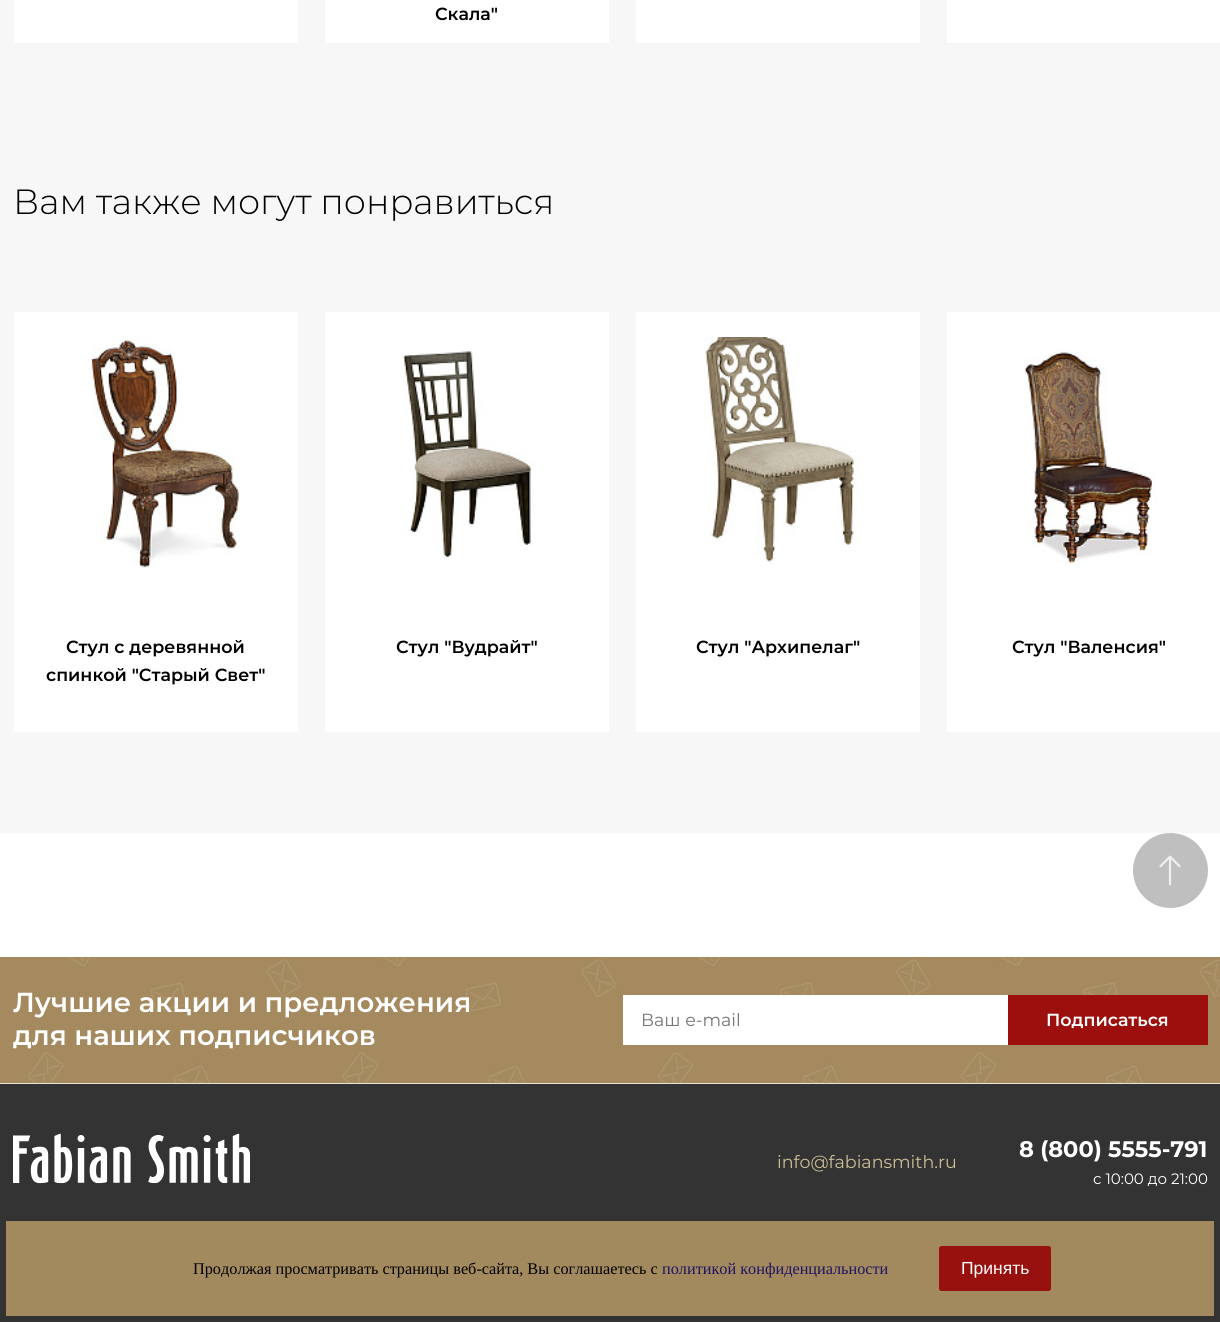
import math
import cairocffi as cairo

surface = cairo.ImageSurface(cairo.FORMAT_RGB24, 1220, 1322)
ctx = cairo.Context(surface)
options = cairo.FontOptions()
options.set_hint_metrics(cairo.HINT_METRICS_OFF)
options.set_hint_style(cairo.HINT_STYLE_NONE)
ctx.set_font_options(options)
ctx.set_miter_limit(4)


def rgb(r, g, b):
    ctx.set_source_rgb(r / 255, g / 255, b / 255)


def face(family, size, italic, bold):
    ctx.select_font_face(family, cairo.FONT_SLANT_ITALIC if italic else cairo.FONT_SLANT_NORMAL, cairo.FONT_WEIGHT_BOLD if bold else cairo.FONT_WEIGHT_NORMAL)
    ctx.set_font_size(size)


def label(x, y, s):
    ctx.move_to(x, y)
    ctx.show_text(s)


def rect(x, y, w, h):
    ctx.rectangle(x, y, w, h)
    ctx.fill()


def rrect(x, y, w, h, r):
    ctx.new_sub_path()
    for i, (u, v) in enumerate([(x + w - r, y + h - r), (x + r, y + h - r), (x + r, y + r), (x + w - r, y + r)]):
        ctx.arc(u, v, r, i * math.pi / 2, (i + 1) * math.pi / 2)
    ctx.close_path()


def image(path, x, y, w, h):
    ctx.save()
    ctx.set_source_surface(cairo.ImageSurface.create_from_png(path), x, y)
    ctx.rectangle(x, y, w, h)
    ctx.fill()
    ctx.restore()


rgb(255, 255, 255)
ctx.paint()
rgb(247, 247, 247)
rect(0, 0, 1220, 833)
rgb(255, 255, 255)
rect(14, 0, 284, 43)
rect(325, 0, 284, 43)
face('Montserrat SemiBold', 17.5, 0, 0)
rgb(0, 0, 0)
label(435, 20, 'Скала"')
rgb(255, 255, 255)
rect(636, 0, 284, 43)
rect(947, 0, 273, 43)
face('Montserrat Light', 35, 0, 0)
rgb(0, 0, 0)
label(13, 214, 'Вам также могут понравиться')
rgb(255, 255, 255)
rect(14, 312, 284, 420)
image('image0.png', 91, 337, 150, 231)
face('Montserrat SemiBold', 17.5, 0, 0)
rgb(0, 0, 0)
label(66, 653, 'Стул с деревянной')
label(46, 681, 'спинкой "Старый Свет"')
rgb(255, 255, 255)
rect(325, 312, 284, 420)
image('image1.png', 402, 351, 135, 206)
rgb(0, 0, 0)
label(396, 653, 'Стул "Вудрайт"')
rgb(255, 255, 255)
rect(636, 312, 284, 420)
image('image2.png', 703, 337, 156, 228)
rgb(0, 0, 0)
label(696, 653, 'Стул "Архипелаг"')
rgb(255, 255, 255)
rect(947, 312, 273, 420)
image('image3.png', 1024, 350, 134, 215)
rgb(0, 0, 0)
label(1012, 653, 'Стул "Валенсия"')
rgb(191, 191, 191)
ctx.new_path()
ctx.arc(1170.5, 870.5, 37.5, 0, 2 * math.pi)
ctx.fill()
image('image4.png', 1159, 855, 22, 31)
image('image5.png', 0, 957, 1220, 127)
face('Montserrat SemiBold', 27.5, 0, 0)
rgb(255, 255, 255)
label(13, 1012, 'Лучшие акции и предложения')
label(13, 1045, 'для наших подписчиков')
rect(623, 995, 385, 50)
face('Montserrat', 17.5, 0, 0)
rgb(117, 117, 117)
label(641, 1026, 'Ваш e-mail')
rgb(156, 15, 12)
rect(1008, 995, 200, 50)
face('Montserrat SemiBold', 17.5, 0, 0)
rgb(255, 255, 255)
label(1046, 1026, 'Подписаться')
rgb(51, 51, 51)
rect(0, 1084, 1220, 238)
image('image6.png', 13, 1133, 237, 51)
face('Montserrat', 17.5, 0, 0)
rgb(204, 190, 150)
label(777, 1168, 'info@fabiansmith.ru')
face('Montserrat', 22.5, 0, 1)
rgb(255, 255, 255)
label(1019, 1157, '8 (800) 5555-791')
face('Montserrat', 15, 0, 0)
label(1093, 1184, 'с 10:00 до 21:00')
ctx.set_source_rgba(0.643, 0.541, 0.373, 0.99)
rect(6, 1221, 1208, 95)
face('Liberation Serif', 16.25, 0, 0)
rgb(0, 0, 0)
label(193, 1274, 'Продолжая просматривать страницы веб-сайта, Вы соглашаетесь с')
rgb(29, 19, 99)
label(662, 1274, 'политикой конфиденциальности')
rgb(152, 17, 14)
rrect(940.5, 1247.5, 109, 42, 1)
ctx.fill_preserve()
ctx.set_line_width(3)
ctx.stroke()
face('Liberation Sans', 17.5, 0, 0)
rgb(255, 255, 255)
label(961, 1274, 'Принять')
surface.write_to_png('render.png')
